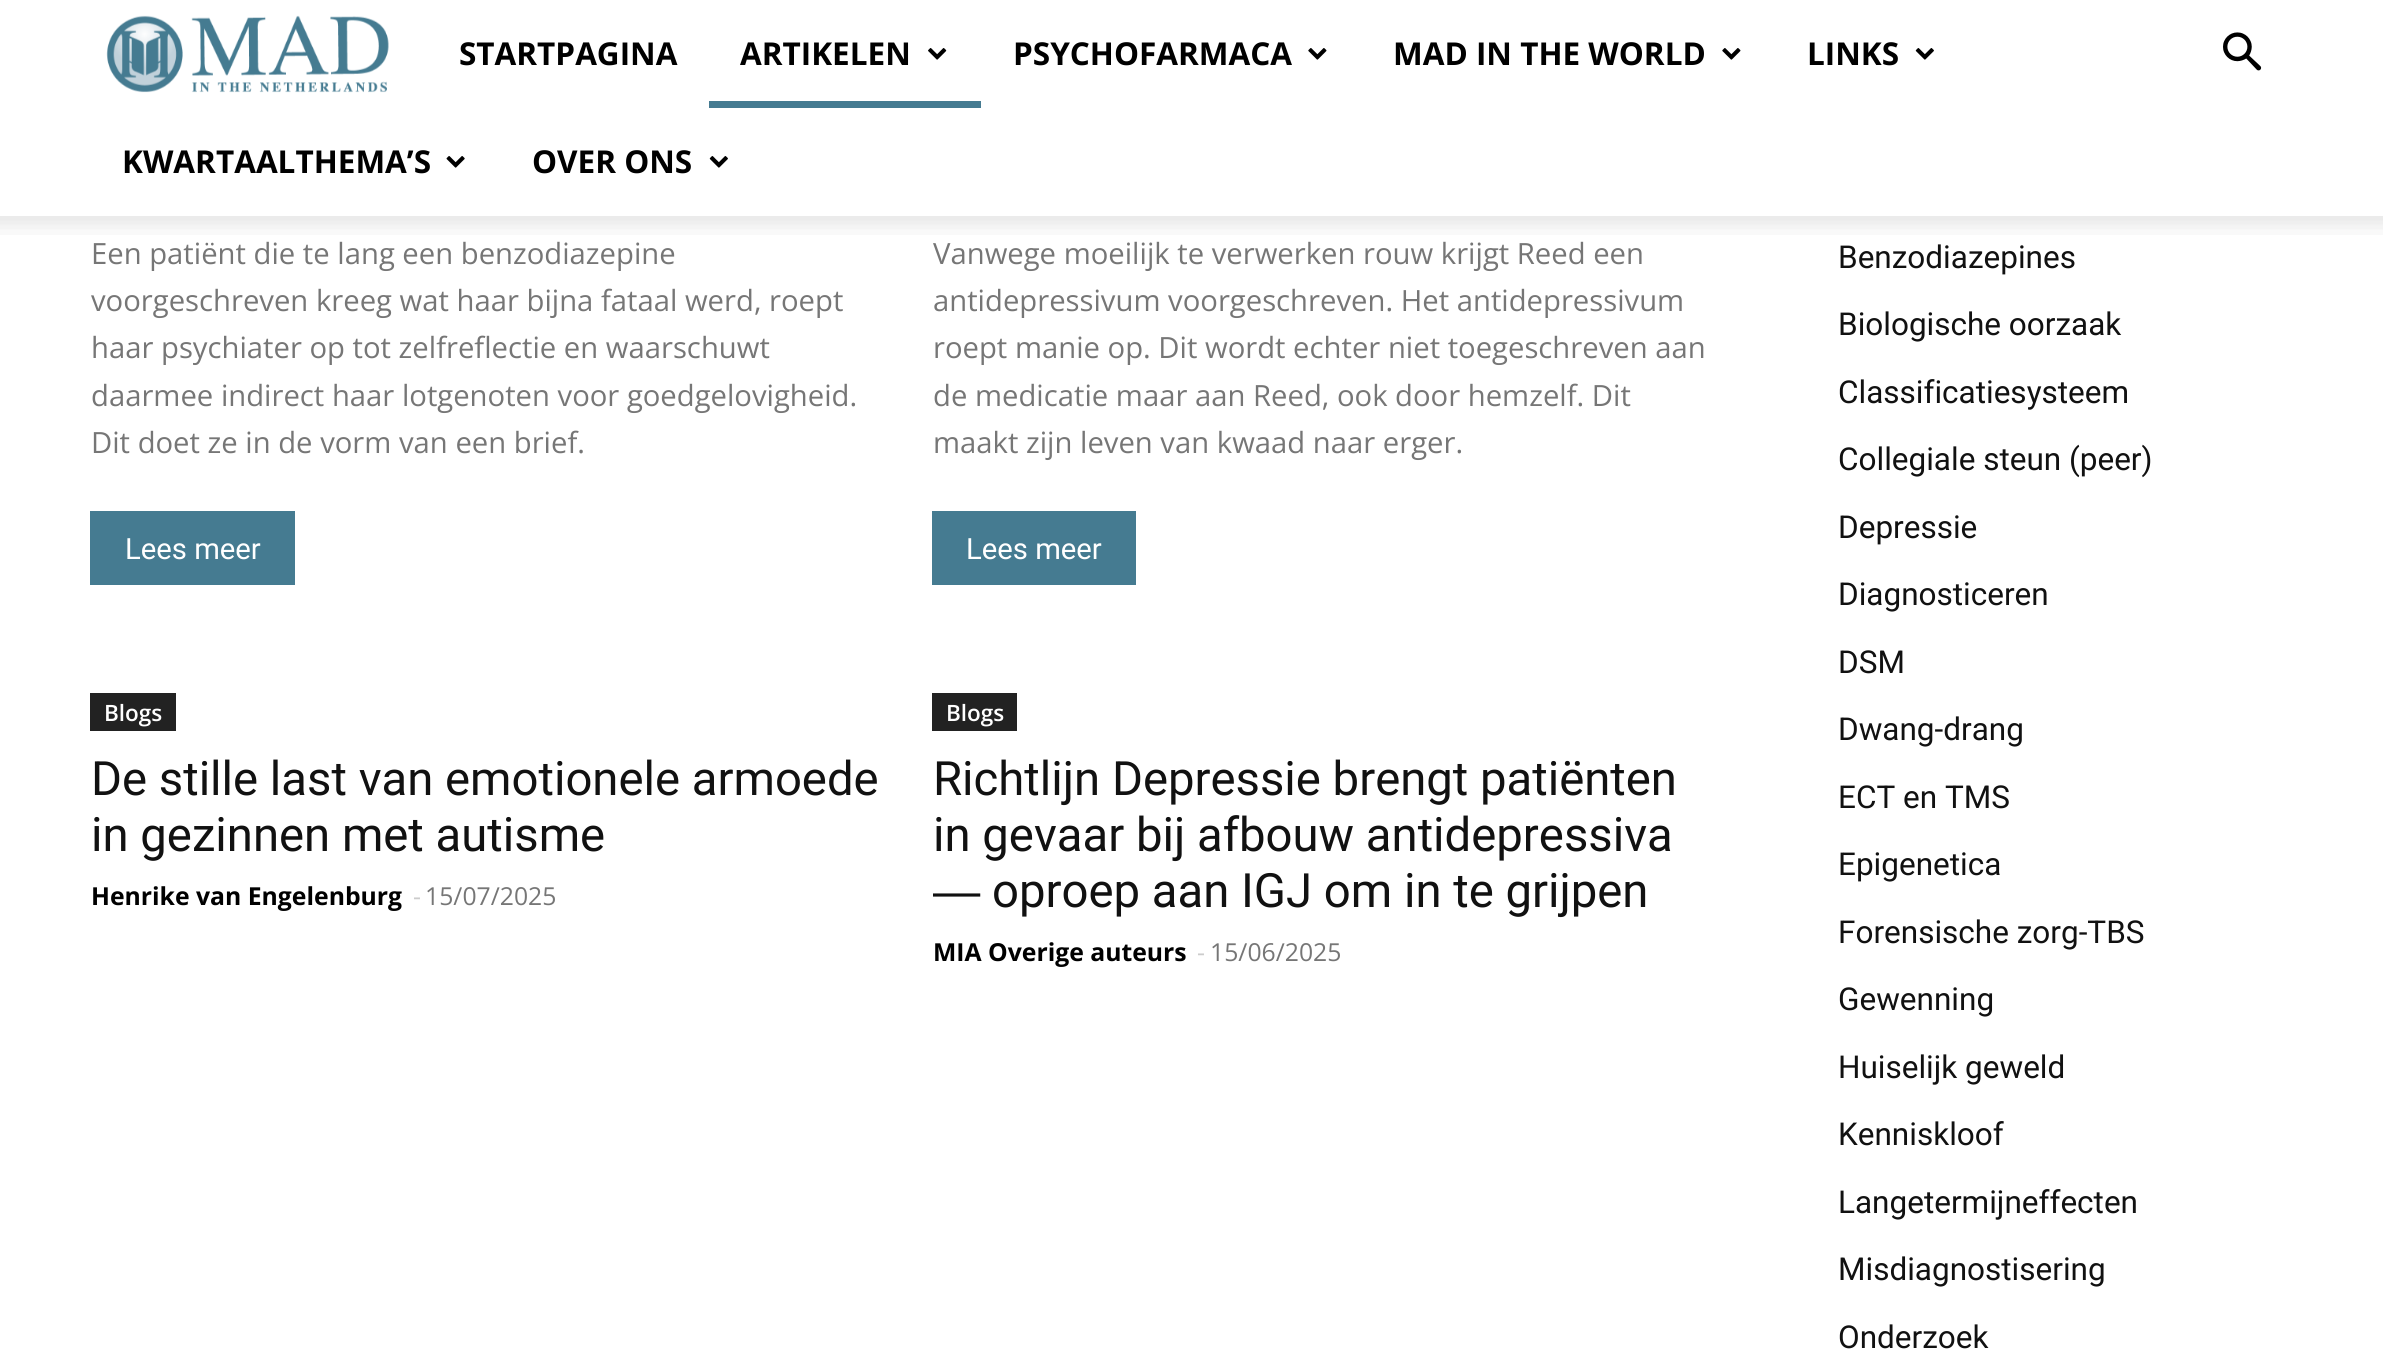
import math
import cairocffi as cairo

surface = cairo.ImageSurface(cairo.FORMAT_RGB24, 2383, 1370)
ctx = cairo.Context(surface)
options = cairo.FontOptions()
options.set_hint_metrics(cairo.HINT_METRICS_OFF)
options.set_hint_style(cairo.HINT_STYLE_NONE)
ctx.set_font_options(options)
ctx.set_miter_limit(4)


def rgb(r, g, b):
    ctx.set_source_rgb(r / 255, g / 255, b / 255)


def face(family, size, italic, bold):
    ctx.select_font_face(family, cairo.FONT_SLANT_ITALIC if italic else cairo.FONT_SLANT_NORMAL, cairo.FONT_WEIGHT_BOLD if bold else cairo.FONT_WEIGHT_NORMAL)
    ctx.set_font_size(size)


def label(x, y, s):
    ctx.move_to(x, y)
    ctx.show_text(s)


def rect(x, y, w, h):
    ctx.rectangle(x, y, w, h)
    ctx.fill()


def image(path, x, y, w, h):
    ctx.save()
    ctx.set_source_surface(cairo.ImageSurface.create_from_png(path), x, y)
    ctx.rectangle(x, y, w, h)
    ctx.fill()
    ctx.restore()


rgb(255, 255, 255)
ctx.paint()
image('image0.png', 106, 15, 283, 78)
face('Open Sans', 31.5, 0, 1)
rgb(0, 0, 0)
label(459, 65, 'STARTPAGINA')
label(740, 65, 'ARTIKELEN')
image('image1.png', 928, 48, 19, 12)
rgb(69, 123, 145)
rect(709, 101, 272, 7)
rgb(0, 0, 0)
label(1013, 65, 'PSYCHOFARMACA')
image('image2.png', 1308, 48, 19, 12)
label(1393, 65, 'MAD IN THE WORLD')
image('image2.png', 1722, 48, 19, 12)
label(1807, 65, 'LINKS')
image('image3.png', 1915, 48, 19, 12)
label(122, 173, 'KWARTAALTHEMA’S')
image('image4.png', 446, 156, 19, 12)
label(532, 173, 'OVER ONS')
image('image5.png', 709, 156, 19, 12)
image('image6.png', 2223, 32, 39, 39)
image('image7.png', 0, 216, 2383, 19)
face('Open Sans', 29.25, 0, 0)
rgb(118, 118, 118)
label(91, 264, 'Een patiënt die te lang een benzodiazepine')
label(91, 311, 'voorgeschreven kreeg wat haar bijna fataal werd, roept')
label(91, 358, 'haar psychiater op tot zelfreflectie en waarschuwt')
label(91, 406, 'daarmee indirect haar lotgenoten voor goedgelovigheid.')
label(91, 453, 'Dit doet ze in de vorm van een brief.')
rgb(69, 123, 145)
rect(90, 511, 205, 74)
face('Roboto', 29.25, 0, 0)
rgb(255, 255, 255)
label(125, 559, 'Lees meer')
face('Open Sans', 29.25, 0, 0)
rgb(118, 118, 118)
label(933, 264, 'Vanwege moeilijk te verwerken rouw krijgt Reed een')
label(933, 311, 'antidepressivum voorgeschreven. Het antidepressivum')
label(933, 358, 'roept manie op. Dit wordt echter niet toegeschreven aan')
label(933, 406, 'de medicatie maar aan Reed, ook door hemzelf. Dit')
label(933, 453, 'maakt zijn leven van kwaad naar erger.')
rgb(69, 123, 145)
rect(932, 511, 204, 74)
face('Roboto', 29.25, 0, 0)
rgb(255, 255, 255)
label(966, 559, 'Lees meer')
rgb(34, 34, 34)
rect(90, 693, 86, 38)
face('Open Sans SemiBold', 22.5, 0, 0)
rgb(255, 255, 255)
label(104, 721, 'Blogs')
face('Roboto', 47.25, 0, 0)
rgb(17, 17, 17)
label(91, 795, 'De stille last van emotionele armoede')
label(91, 851, 'in gezinnen met autisme')
face('Open Sans', 24.75, 0, 1)
rgb(0, 0, 0)
label(91, 905, 'Henrike van Engelenburg')
face('Open Sans', 24.75, 0, 0)
rgb(204, 204, 204)
label(413, 905, '-')
rgb(118, 118, 118)
label(425, 905, '15/07/2025')
rgb(34, 34, 34)
rect(932, 693, 85, 38)
face('Open Sans SemiBold', 22.5, 0, 0)
rgb(255, 255, 255)
label(946, 721, 'Blogs')
face('Roboto', 47.25, 0, 0)
rgb(17, 17, 17)
label(933, 795, 'Richtlijn Depressie brengt patiënten')
label(933, 851, 'in gevaar bij afbouw antidepressiva')
face('Liberation Sans', 47.25, 0, 0)
label(933, 907, '―')
face('Roboto', 47.25, 0, 0)
label(992, 907, 'oproep aan IGJ om in te grijpen')
face('Open Sans', 24.75, 0, 1)
rgb(0, 0, 0)
label(933, 961, 'MIA Overige auteurs')
face('Open Sans', 24.75, 0, 0)
rgb(204, 204, 204)
label(1197, 961, '-')
rgb(118, 118, 118)
label(1210, 961, '15/06/2025')
face('Roboto', 31.5, 0, 0)
rgb(17, 17, 17)
label(1838, 268, 'Benzodiazepines')
label(1838, 335, 'Biologische oorzaak')
label(1838, 403, 'Classificatiesysteem')
label(1838, 470, 'Collegiale steun (peer)')
label(1838, 538, 'Depressie')
label(1838, 605, 'Diagnosticeren')
label(1838, 673, 'DSM')
label(1838, 740, 'Dwang-drang')
label(1838, 808, 'ECT en TMS')
label(1838, 875, 'Epigenetica')
label(1838, 943, 'Forensische zorg-TBS')
label(1838, 1010, 'Gewenning')
label(1838, 1078, 'Huiselijk geweld')
label(1838, 1145, 'Kenniskloof')
label(1838, 1213, 'Langetermijneffecten')
label(1838, 1280, 'Misdiagnostisering')
label(1838, 1348, 'Onderzoek')
surface.write_to_png('render.png')
